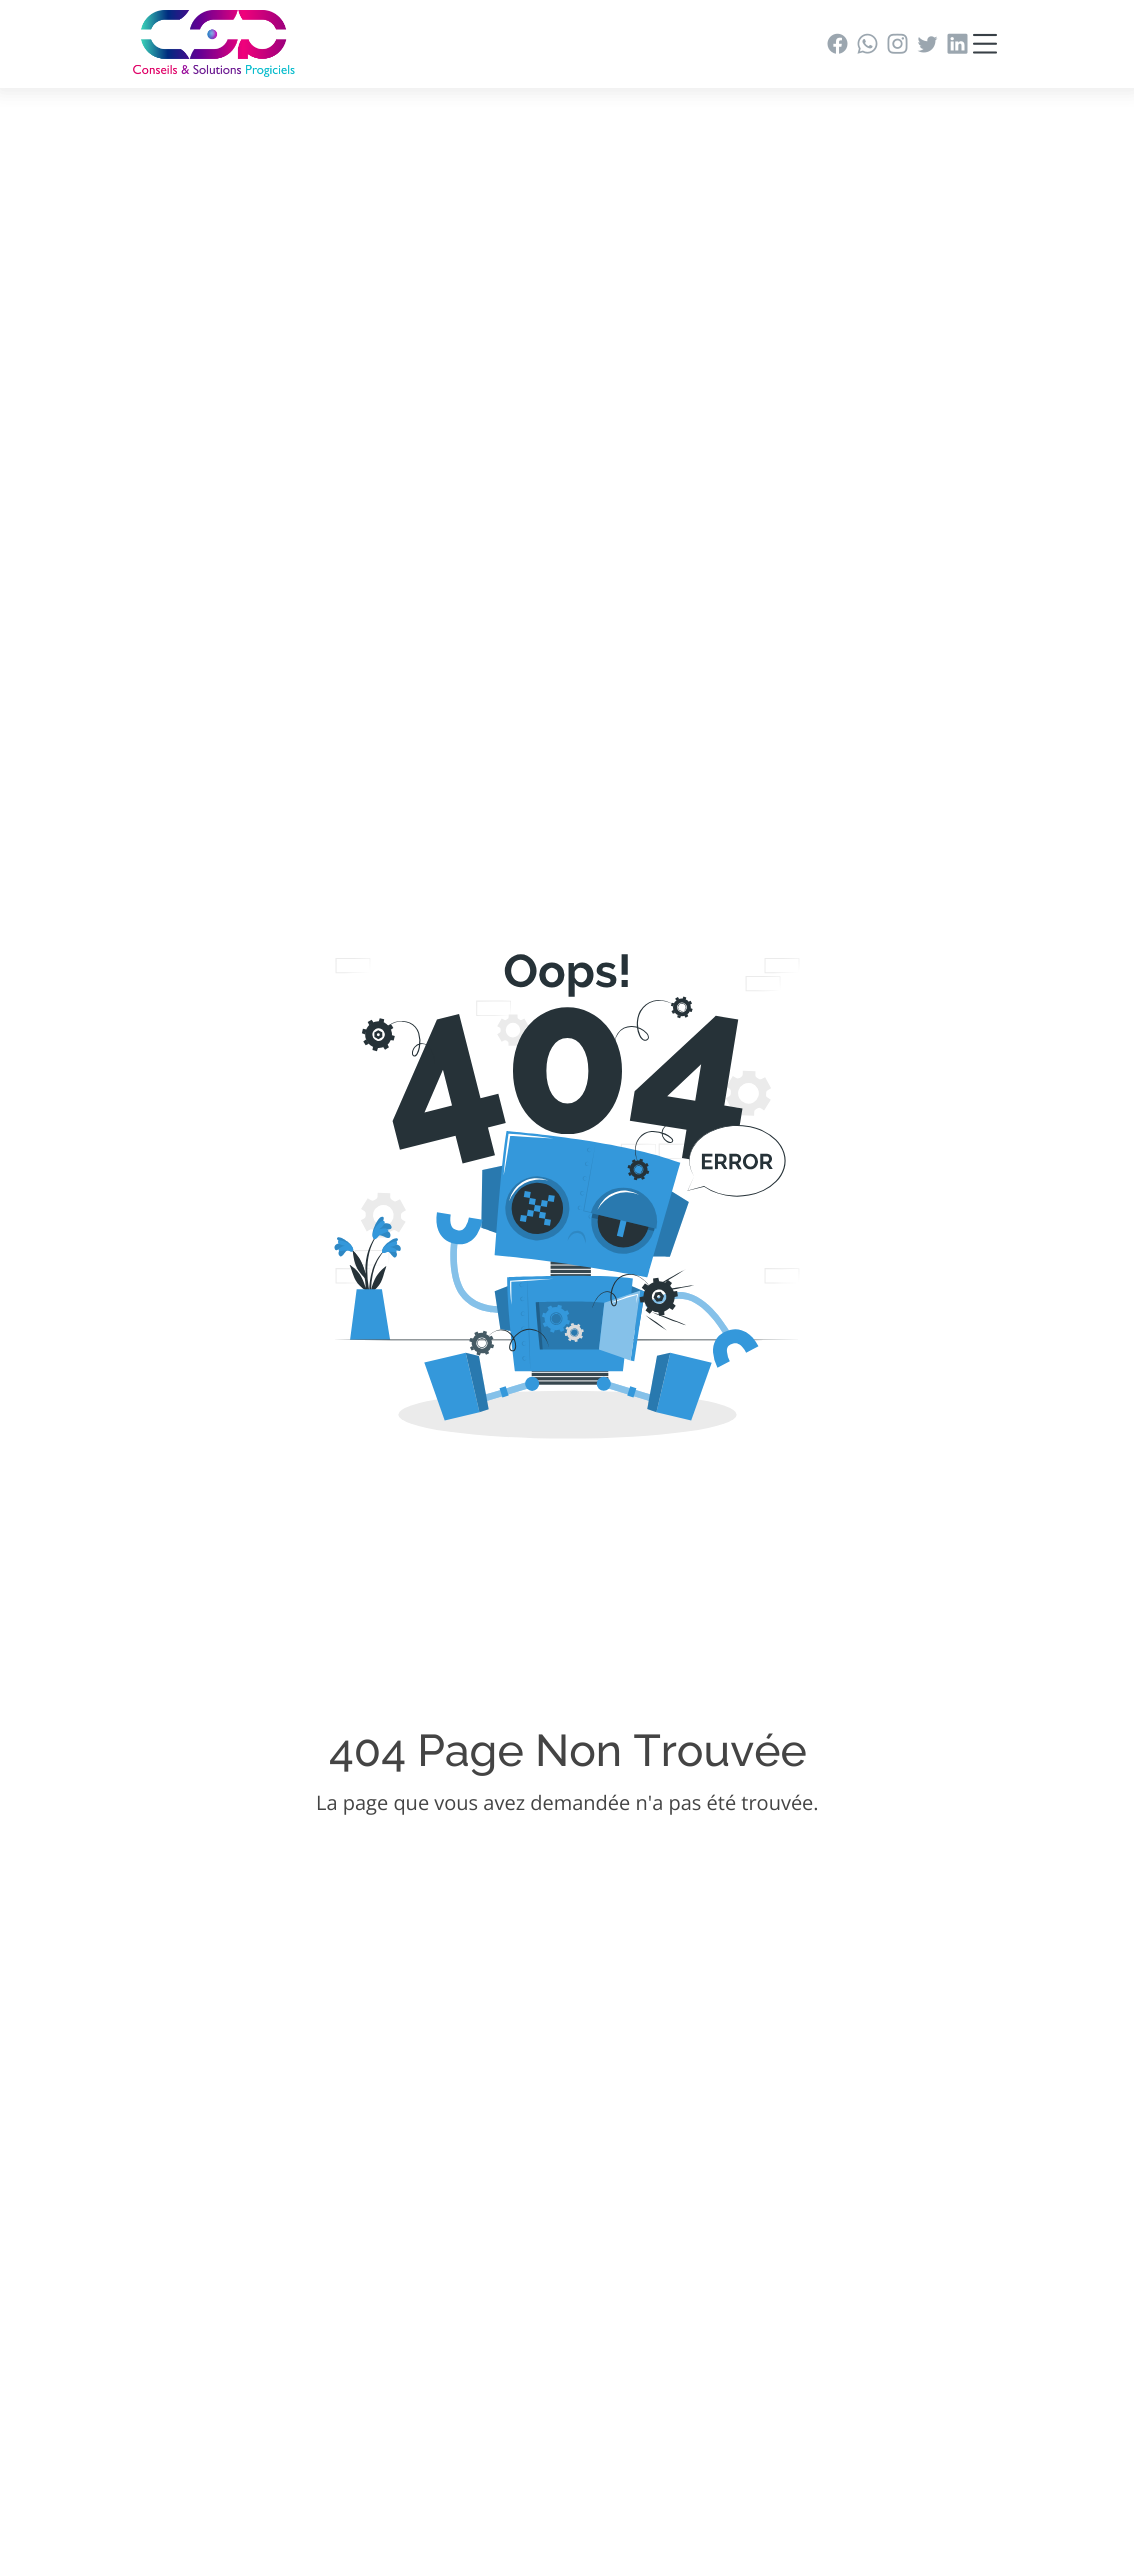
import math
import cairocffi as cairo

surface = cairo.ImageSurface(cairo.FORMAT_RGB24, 1134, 2549)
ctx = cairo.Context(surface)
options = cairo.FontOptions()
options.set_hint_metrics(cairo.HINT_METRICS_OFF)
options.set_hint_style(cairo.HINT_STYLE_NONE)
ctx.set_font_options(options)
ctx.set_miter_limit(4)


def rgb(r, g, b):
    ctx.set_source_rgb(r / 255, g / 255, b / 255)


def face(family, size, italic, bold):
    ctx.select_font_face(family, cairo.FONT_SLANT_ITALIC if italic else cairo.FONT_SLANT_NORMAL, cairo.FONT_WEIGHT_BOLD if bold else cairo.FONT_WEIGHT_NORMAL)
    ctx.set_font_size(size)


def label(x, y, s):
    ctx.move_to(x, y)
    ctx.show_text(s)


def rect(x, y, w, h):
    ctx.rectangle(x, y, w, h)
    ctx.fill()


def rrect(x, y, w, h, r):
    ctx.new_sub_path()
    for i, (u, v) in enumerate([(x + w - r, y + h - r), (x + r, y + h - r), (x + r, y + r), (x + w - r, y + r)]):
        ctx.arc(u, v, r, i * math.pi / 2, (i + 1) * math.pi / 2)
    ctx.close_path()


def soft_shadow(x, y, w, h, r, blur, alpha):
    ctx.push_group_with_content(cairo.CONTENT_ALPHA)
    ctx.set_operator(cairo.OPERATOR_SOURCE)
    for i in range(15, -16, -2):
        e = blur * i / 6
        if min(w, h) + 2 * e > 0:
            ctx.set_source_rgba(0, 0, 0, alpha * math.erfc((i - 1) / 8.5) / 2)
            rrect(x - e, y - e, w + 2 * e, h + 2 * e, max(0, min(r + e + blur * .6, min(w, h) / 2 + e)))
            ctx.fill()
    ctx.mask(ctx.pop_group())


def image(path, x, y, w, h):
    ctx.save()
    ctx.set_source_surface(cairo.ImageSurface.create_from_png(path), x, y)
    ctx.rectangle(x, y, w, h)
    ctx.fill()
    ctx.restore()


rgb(255, 255, 255)
ctx.paint()
rgb(0, 0, 0)
soft_shadow(0, 3, 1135, 87, 0, 9.5, 0.1)
rgb(255, 255, 255)
rect(0, 0, 1134, 88)
image('image0.png', 133, 10, 162, 67)
image('image1.png', 827, 33, 21, 21)
image('image2.png', 857, 33, 21, 21)
image('image3.png', 887, 33, 21, 21)
image('image4.png', 917, 36, 21, 17)
image('image5.png', 947, 33, 21, 21)
image('image6.png', 973, 33, 24, 21)
image('image7.png', 334, 954, 466, 485)
face('Raleway Medium', 44.5, 0, 0)
rgb(68, 68, 68)
label(329, 1766, '404 Page Non Trouvée')
face('Open Sans', 20, 0, 0)
label(316, 1810, 'La page que vous avez demandée n\'a pas été trouvée.')
surface.write_to_png('render.png')
